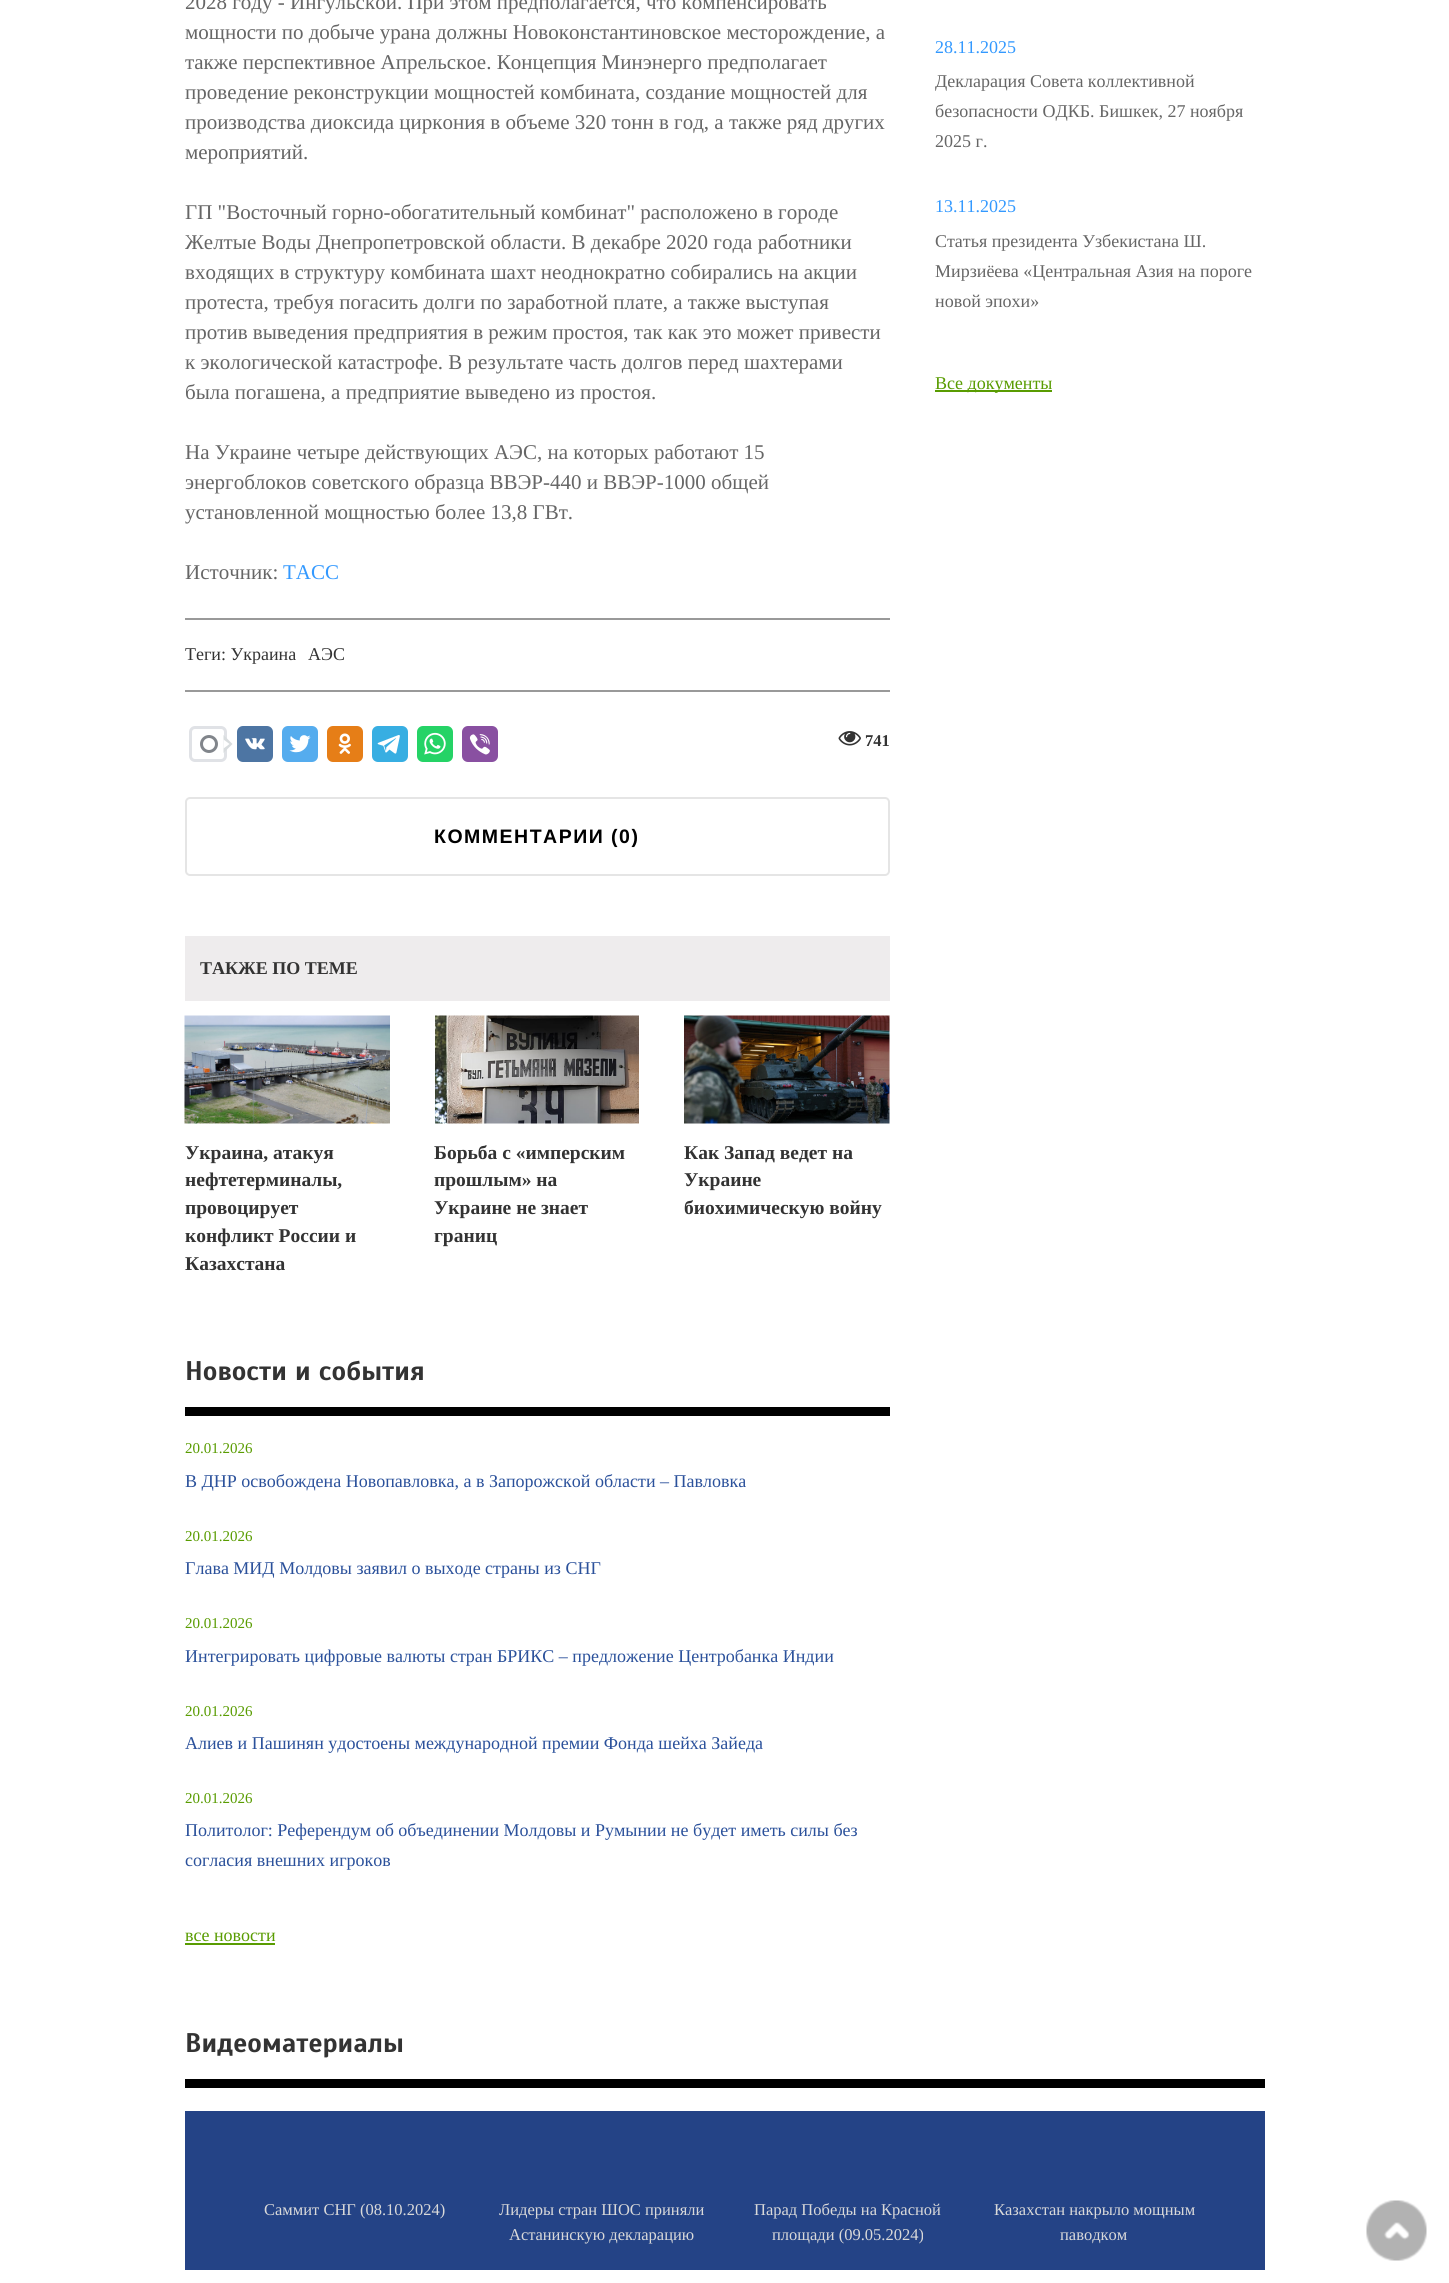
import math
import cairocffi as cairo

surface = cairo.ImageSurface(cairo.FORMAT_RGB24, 1449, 2283)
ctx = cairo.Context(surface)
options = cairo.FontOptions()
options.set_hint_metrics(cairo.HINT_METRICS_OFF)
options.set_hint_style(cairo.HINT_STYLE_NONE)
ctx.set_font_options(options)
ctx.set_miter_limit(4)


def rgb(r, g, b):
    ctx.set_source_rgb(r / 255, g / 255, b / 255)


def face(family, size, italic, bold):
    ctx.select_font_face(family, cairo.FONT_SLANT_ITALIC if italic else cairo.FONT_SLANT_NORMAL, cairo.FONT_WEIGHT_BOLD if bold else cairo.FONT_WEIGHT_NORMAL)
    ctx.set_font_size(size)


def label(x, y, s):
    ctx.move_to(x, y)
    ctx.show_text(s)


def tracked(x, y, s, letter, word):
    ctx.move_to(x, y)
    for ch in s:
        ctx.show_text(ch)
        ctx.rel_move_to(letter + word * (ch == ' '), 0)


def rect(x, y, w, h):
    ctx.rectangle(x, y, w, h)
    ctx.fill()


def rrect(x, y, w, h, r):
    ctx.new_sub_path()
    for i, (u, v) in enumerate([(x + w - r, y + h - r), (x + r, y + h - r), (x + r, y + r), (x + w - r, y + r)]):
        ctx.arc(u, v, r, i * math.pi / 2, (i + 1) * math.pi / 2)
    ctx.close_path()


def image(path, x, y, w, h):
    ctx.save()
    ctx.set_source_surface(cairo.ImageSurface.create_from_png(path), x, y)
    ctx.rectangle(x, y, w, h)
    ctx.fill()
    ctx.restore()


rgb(255, 255, 255)
ctx.paint()
face('Liberation Serif', 21, 0, 0)
rgb(102, 102, 102)
label(185, 9, '2028 году - Ингульской. При этом предполагается, что компенсировать')
label(185, 39, 'мощности по добыче урана должны Новоконстантиновское месторождение, а')
label(185, 69, 'также перспективное Апрельское. Концепция Минэнерго предполагает')
label(185, 99, 'проведение реконструкции мощностей комбината, создание мощностей для')
label(185, 129, 'производства диоксида циркония в объеме 320 тонн в год, а также ряд других')
label(185, 159, 'мероприятий.')
label(185, 219, 'ГП "Восточный горно-обогатительный комбинат" расположено в городе')
label(185, 249, 'Желтые Воды Днепропетровской области. В декабре 2020 года работники')
label(185, 279, 'входящих в структуру комбината шахт неоднократно собирались на акции')
label(185, 309, 'протеста, требуя погасить долги по заработной плате, а также выступая')
label(185, 339, 'против выведения предприятия в режим простоя, так как это может привести')
label(185, 369, 'к экологической катастрофе. В результате часть долгов перед шахтерами')
label(185, 399, 'была погашена, а предприятие выведено из простоя.')
label(185, 459, 'На Украине четыре действующих АЭС, на которых работают 15')
label(185, 489, 'энергоблоков советского образца ВВЭР-440 и ВВЭР-1000 общей')
label(185, 519, 'установленной мощностью более 13,8 ГВт.')
label(185, 579, 'Источник:')
rgb(51, 153, 255)
label(283, 579, 'ТАСС')
rgb(153, 153, 153)
rect(185, 618, 705, 2)
rect(185, 690, 705, 2)
face('Liberation Serif', 18, 0, 0)
rgb(51, 51, 51)
label(185, 660, 'Теги: Украина')
label(308, 660, 'АЭС')
rrect(190.5, 727.5, 35, 33, 4.5)
rgb(224, 226, 230)
ctx.set_line_width(3)
ctx.stroke()
ctx.arc(209, 744, 7.5, 0, 2 * math.pi)
rgb(129, 133, 139)
ctx.stroke()
rgb(216, 220, 222)
ctx.new_path()
ctx.move_to(223.5, 753)
ctx.line_to(223.5, 735)
ctx.line_to(232.5, 744)
ctx.close_path()
ctx.fill()
rgb(255, 255, 255)
ctx.new_path()
ctx.move_to(223.5, 748.5)
ctx.line_to(223.5, 739.5)
ctx.line_to(229.5, 744)
ctx.close_path()
ctx.fill()
rgb(77, 117, 163)
rrect(237, 726, 36, 36, 6)
ctx.fill()
image('image0.png', 245, 738, 20, 12)
rgb(85, 172, 238)
rrect(282, 726, 36, 36, 6)
ctx.fill()
image('image1.png', 289, 735, 22, 18)
rgb(230, 126, 23)
rrect(327, 726, 36, 36, 6)
ctx.fill()
image('image2.png', 338, 733, 13, 21)
rgb(55, 174, 226)
rrect(372, 726, 36, 36, 6)
ctx.fill()
image('image3.png', 377, 735, 23, 19)
rgb(37, 211, 102)
rrect(417, 726, 36, 36, 6)
ctx.fill()
image('image4.png', 424, 732, 22, 23)
rgb(137, 80, 161)
rrect(462, 726, 36, 36, 6)
ctx.fill()
image('image5.png', 469, 734, 21, 21)
image('image6.png', 838, 731, 23, 15)
face('Liberation Serif', 16.5, 0, 1)
rgb(51, 51, 51)
label(865, 746, '741')
rrect(186, 798, 703, 77, 4)
rgb(229, 229, 229)
ctx.set_line_width(2)
ctx.stroke()
face('Liberation Sans', 19.5, 0, 1)
rgb(0, 0, 0)
tracked(434, 843, 'КОММЕНТАРИИ (0)', 1.5, 0)
rgb(238, 236, 237)
rect(185, 936, 705, 65)
face('Liberation Serif', 18, 0, 1)
rgb(51, 51, 51)
label(200, 974, 'ТАКЖЕ ПО ТЕМЕ')
image('image7.png', 184, 1015, 206, 109)
face('Liberation Serif', 19.5, 0, 1)
label(185, 1159, 'Украина, атакуя')
label(185, 1186, 'нефтетерминалы,')
label(185, 1214, 'провоцирует')
label(185, 1242, 'конфликт России и')
label(185, 1270, 'Казахстана')
image('image8.png', 435, 1015, 204, 109)
label(434, 1159, 'Борьба с «имперским')
label(434, 1186, 'прошлым» на')
label(434, 1214, 'Украине не знает')
label(434, 1242, 'границ')
image('image9.png', 684, 1015, 206, 109)
label(684, 1159, 'Как Запад ведет на')
label(684, 1186, 'Украине')
label(684, 1214, 'биохимическую войну')
rgb(0, 0, 0)
rect(185, 1407, 705, 9)
face('Scada', 27, 0, 1)
rgb(51, 51, 51)
label(185, 1380, 'Новости и события')
face('Liberation Serif', 15, 0, 0)
rgb(89, 156, 1)
label(185, 1453, '20.01.2026')
face('Liberation Serif', 18, 0, 0)
rgb(43, 81, 155)
label(185, 1487, 'В ДНР освобождена Новопавловка, а в Запорожской области – Павловка')
face('Liberation Serif', 15, 0, 0)
rgb(89, 156, 1)
label(185, 1541, '20.01.2026')
face('Liberation Serif', 18, 0, 0)
rgb(43, 81, 155)
label(185, 1574, 'Глава МИД Молдовы заявил о выходе страны из СНГ')
face('Liberation Serif', 15, 0, 0)
rgb(89, 156, 1)
label(185, 1628, '20.01.2026')
face('Liberation Serif', 18, 0, 0)
rgb(43, 81, 155)
label(185, 1662, 'Интегрировать цифровые валюты стран БРИКС – предложение Центробанка Индии')
face('Liberation Serif', 15, 0, 0)
rgb(89, 156, 1)
label(185, 1716, '20.01.2026')
face('Liberation Serif', 18, 0, 0)
rgb(43, 81, 155)
label(185, 1749, 'Алиев и Пашинян удостоены международной премии Фонда шейха Зайеда')
face('Liberation Serif', 15, 0, 0)
rgb(89, 156, 1)
label(185, 1803, '20.01.2026')
face('Liberation Serif', 18, 0, 0)
rgb(43, 81, 155)
label(185, 1836, 'Политолог: Референдум об объединении Молдовы и Румынии не будет иметь силы без')
label(185, 1866, 'согласия внешних игроков')
rgb(89, 156, 1)
label(185, 1941, 'все новости')
rect(185, 1943, 90, 2)
rgb(51, 153, 255)
label(935, 53, '28.11.2025')
rgb(102, 102, 102)
label(935, 87, 'Декларация Совета коллективной')
label(935, 117, 'безопасности ОДКБ. Бишкек, 27 ноября')
label(935, 147, '2025 г.')
rgb(51, 153, 255)
label(935, 212, '13.11.2025')
rgb(102, 102, 102)
label(935, 247, 'Статья президента Узбекистана Ш.')
label(935, 277, 'Мирзиёева «Центральная Азия на пороге')
label(935, 307, 'новой эпохи»')
rgb(89, 156, 1)
rect(935, 390, 117, 2)
label(935, 389, 'Все документы')
rgb(0, 0, 0)
rect(185, 2079, 1080, 9)
face('Scada', 27, 0, 1)
rgb(51, 51, 51)
label(185, 2052, 'Видеоматериалы')
rgb(36, 67, 134)
rect(185, 2111, 1080, 159)
face('Liberation Serif', 16.5, 0, 0)
rgb(217, 217, 217)
label(264, 2215, 'Саммит СНГ (08.10.2024)')
label(499, 2215, 'Лидеры стран ШОС приняли')
label(509, 2240, 'Астанинскую декларацию')
label(754, 2215, 'Парад Победы на Красной')
label(772, 2240, 'площади (09.05.2024)')
label(994, 2215, 'Казахстан накрыло мощным')
label(1060, 2240, 'паводком')
image('image10.png', 1366, 2200, 61, 61)
surface.write_to_png('render.png')
